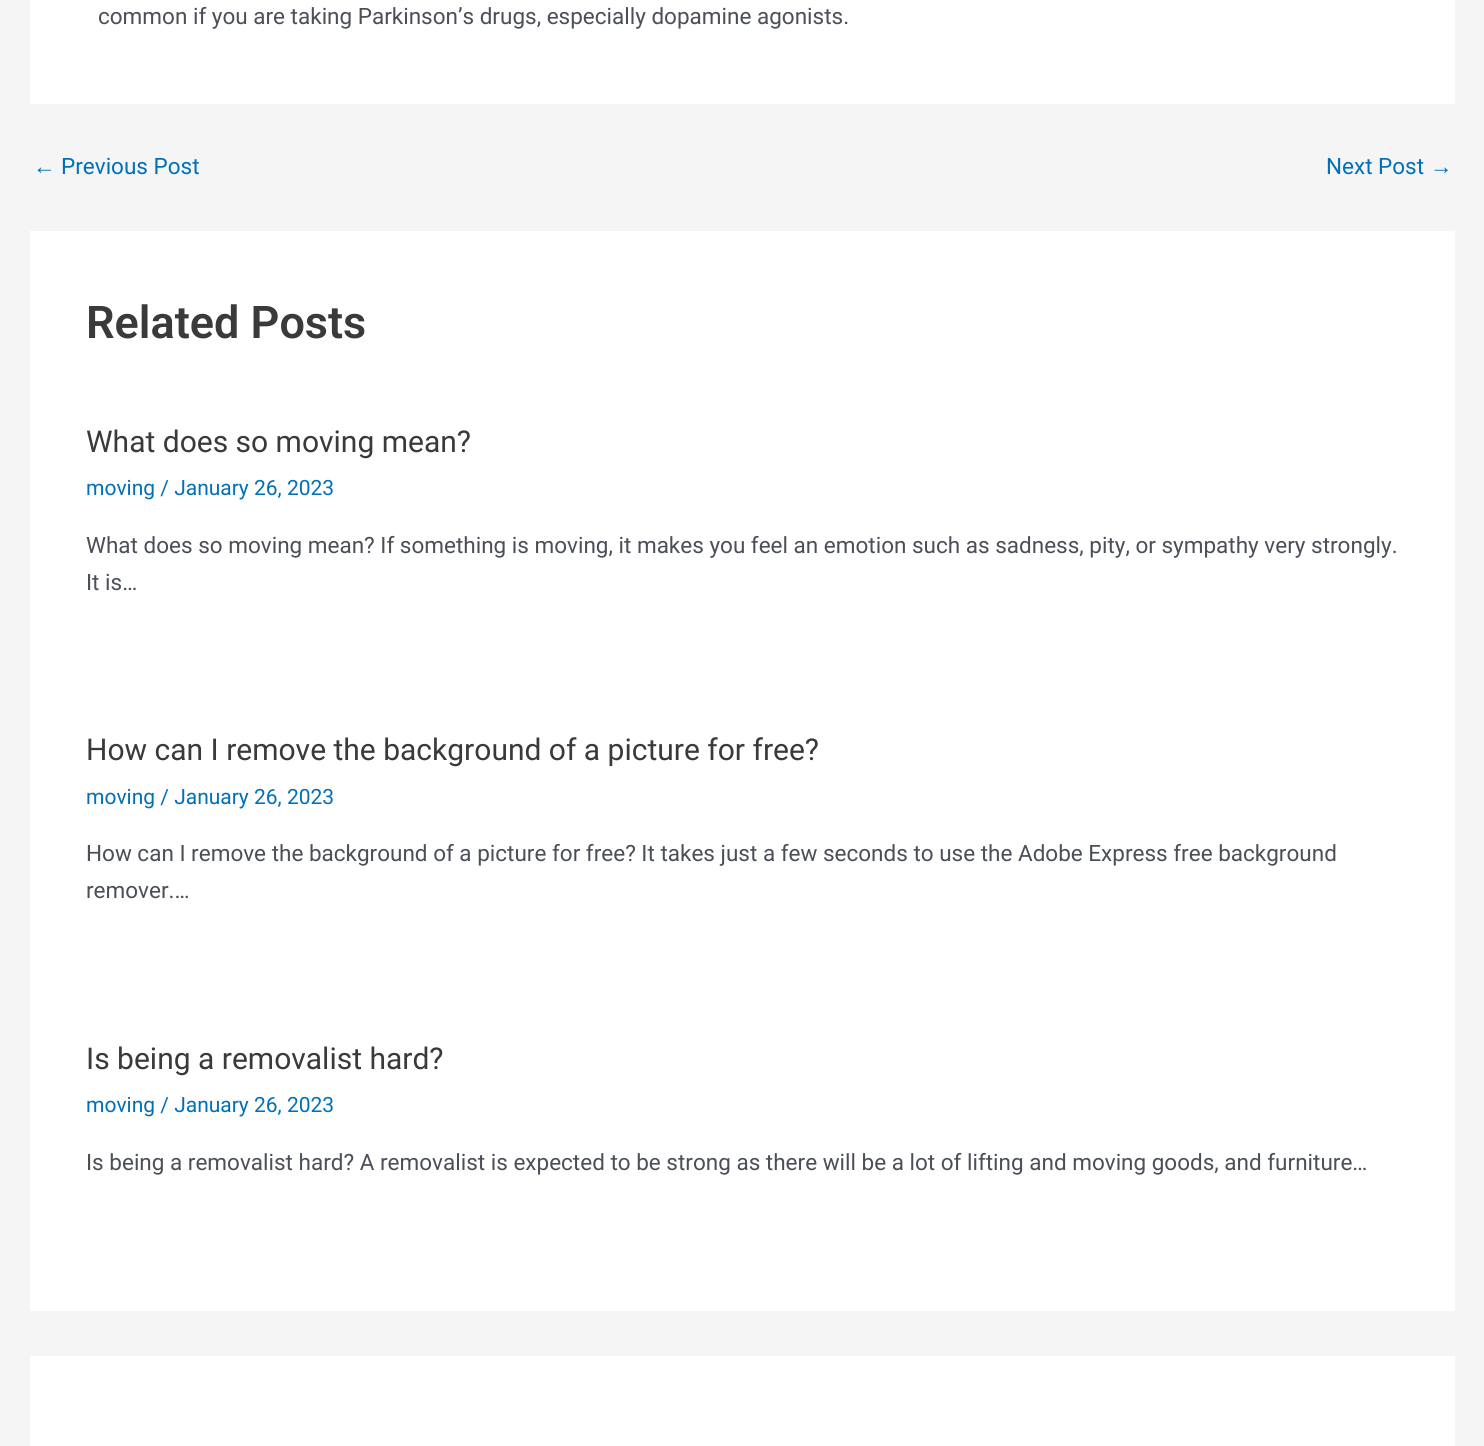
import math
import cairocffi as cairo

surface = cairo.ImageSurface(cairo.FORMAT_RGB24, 1484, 1446)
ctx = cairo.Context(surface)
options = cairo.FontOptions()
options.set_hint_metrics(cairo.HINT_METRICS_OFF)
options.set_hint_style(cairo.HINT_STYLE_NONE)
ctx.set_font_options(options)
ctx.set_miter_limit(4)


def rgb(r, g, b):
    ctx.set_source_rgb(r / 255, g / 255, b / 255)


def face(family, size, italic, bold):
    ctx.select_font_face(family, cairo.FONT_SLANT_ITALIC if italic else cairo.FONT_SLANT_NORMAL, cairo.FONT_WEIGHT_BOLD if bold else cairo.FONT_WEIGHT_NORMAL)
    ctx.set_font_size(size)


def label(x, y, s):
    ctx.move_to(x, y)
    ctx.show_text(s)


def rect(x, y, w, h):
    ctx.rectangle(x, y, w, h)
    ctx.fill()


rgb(245, 245, 245)
ctx.paint()
rgb(255, 255, 255)
rect(30, 0, 1425, 104)
face('Roboto', 22.5, 0, 0)
rgb(75, 79, 88)
label(98, 24, 'common if you are taking Parkinson’s drugs, especially dopamine agonists.')
face('Liberation Sans', 22.5, 0, 0)
rgb(1, 112, 185)
label(33, 174, '←')
face('Roboto', 22.5, 0, 0)
label(61, 174, 'Previous Post')
label(1326, 174, 'Next Post')
face('Liberation Sans', 22.5, 0, 0)
label(1430, 174, '→')
rgb(255, 255, 255)
rect(30, 231, 1425, 1080)
face('Roboto SemiBold', 45, 0, 0)
rgb(58, 58, 58)
label(86, 338, 'Related Posts')
face('Roboto', 30, 0, 0)
label(86, 452, 'What does so moving mean?')
face('Roboto', 21, 0, 0)
rgb(1, 112, 185)
label(86, 495, 'moving / January 26, 2023')
face('Roboto', 22.5, 0, 0)
rgb(75, 79, 88)
label(86, 553, 'What does so moving mean? If something is moving, it makes you feel an emotion such as sadness, pity, or sympathy very strongly.')
label(86, 590, 'It is…')
face('Roboto', 30, 0, 0)
rgb(58, 58, 58)
label(86, 760, 'How can I remove the background of a picture for free?')
face('Roboto', 21, 0, 0)
rgb(1, 112, 185)
label(86, 804, 'moving / January 26, 2023')
face('Roboto', 22.5, 0, 0)
rgb(75, 79, 88)
label(86, 861, 'How can I remove the background of a picture for free? It takes just a few seconds to use the Adobe Express free background')
label(86, 898, 'remover.…')
face('Roboto', 30, 0, 0)
rgb(58, 58, 58)
label(86, 1069, 'Is being a removalist hard?')
face('Roboto', 21, 0, 0)
rgb(1, 112, 185)
label(86, 1112, 'moving / January 26, 2023')
face('Roboto', 22.5, 0, 0)
rgb(75, 79, 88)
label(86, 1170, 'Is being a removalist hard? A removalist is expected to be strong as there will be a lot of lifting and moving goods, and furniture…')
rgb(255, 255, 255)
rect(30, 1356, 1425, 90)
surface.write_to_png('render.png')
